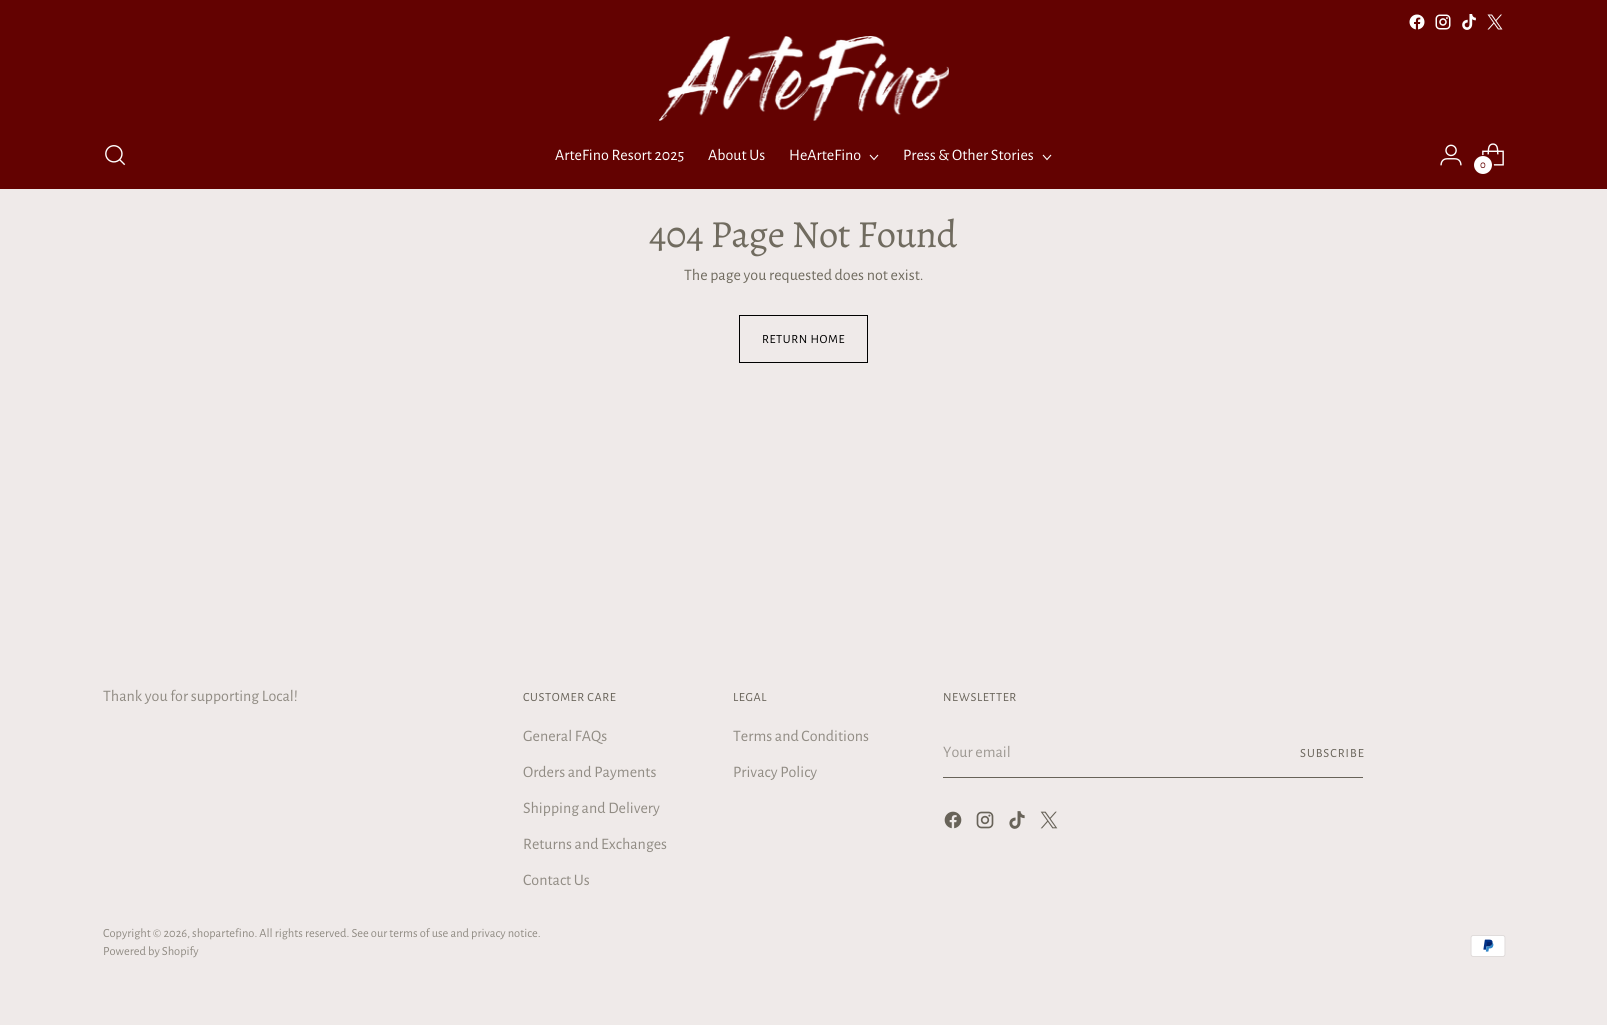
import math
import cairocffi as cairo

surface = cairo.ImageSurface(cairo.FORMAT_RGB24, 1607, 1025)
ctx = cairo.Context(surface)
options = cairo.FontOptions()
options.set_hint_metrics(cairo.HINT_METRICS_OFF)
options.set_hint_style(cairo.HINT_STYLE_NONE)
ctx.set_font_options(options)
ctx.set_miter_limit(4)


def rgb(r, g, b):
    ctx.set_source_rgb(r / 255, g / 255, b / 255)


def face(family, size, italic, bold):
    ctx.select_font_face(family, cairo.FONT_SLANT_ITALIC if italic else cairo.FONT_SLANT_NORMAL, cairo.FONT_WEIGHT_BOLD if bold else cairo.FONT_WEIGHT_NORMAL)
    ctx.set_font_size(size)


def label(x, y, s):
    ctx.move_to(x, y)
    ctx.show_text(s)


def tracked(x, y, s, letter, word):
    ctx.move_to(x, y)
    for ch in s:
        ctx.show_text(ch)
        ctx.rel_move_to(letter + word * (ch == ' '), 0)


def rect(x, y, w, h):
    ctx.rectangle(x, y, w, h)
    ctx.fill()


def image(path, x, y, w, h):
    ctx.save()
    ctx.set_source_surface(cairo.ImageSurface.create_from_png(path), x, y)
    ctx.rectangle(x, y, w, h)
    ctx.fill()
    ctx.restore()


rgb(239, 234, 233)
ctx.paint()
rgb(99, 2, 1)
rect(0, 0, 1607, 189)
image('image0.png', 1409, 14, 16, 16)
image('image1.png', 1435, 14, 16, 16)
image('image2.png', 1462, 14, 14, 16)
image('image3.png', 1487, 14, 16, 16)
image('image4.png', 659, 36, 290, 85)
image('image5.png', 105, 145, 21, 21)
face('Alegreya Sans', 16, 0, 0)
rgb(255, 255, 255)
label(555, 160, 'ArteFino Resort 2025')
label(708, 160, 'About Us')
label(789, 160, 'HeArteFino')
ctx.new_path()
ctx.move_to(870, 155)
ctx.line_to(874, 159.5)
ctx.line_to(878, 155)
ctx.set_line_width(1.1)
ctx.stroke()
label(903, 160, 'Press & Other Stories')
ctx.new_path()
ctx.move_to(1043, 155)
ctx.line_to(1047, 159.5)
ctx.line_to(1051, 155)
ctx.stroke()
image('image6.png', 1440, 144, 22, 22)
image('image7.png', 1482, 143, 22, 23)
ctx.arc(1483.5, 165.5, 9.5, 0, 2 * math.pi)
rgb(99, 2, 1)
ctx.set_line_width(2)
ctx.stroke()
rgb(255, 255, 255)
ctx.arc(1483, 165, 9, 0, 2 * math.pi)
ctx.fill()
face('Alegreya Sans', 11, 0, 0)
rgb(99, 2, 1)
label(1480, 168, '0')
face('Alegreya', 38.5, 0, 0)
rgb(112, 107, 95)
tracked(649, 247, '404 Page Not Found', -0.4, 0)
face('Alegreya Sans', 16, 0, 0)
label(684, 280, 'The page you requested does not exist.')
ctx.rectangle(739.5, 315.5, 128, 47)
rgb(0, 0, 0)
ctx.set_line_width(1)
ctx.stroke()
face('Alegreya Sans', 12.45, 0, 0)
tracked(762, 343, 'RETURN HOME', 0.6, 0)
face('Alegreya Sans', 16, 0, 0)
rgb(145, 140, 132)
label(103, 701, 'Thank you for supporting Local!')
face('Alegreya Sans', 12.45, 0, 0)
rgb(104, 99, 89)
tracked(523, 701, 'CUSTOMER CARE', 0.6, 0)
face('Alegreya Sans', 16, 0, 0)
rgb(145, 140, 132)
label(523, 741, 'General FAQs')
label(523, 777, 'Orders and Payments')
label(523, 813, 'Shipping and Delivery')
label(523, 849, 'Returns and Exchanges')
label(523, 885, 'Contact Us')
face('Alegreya Sans', 12.45, 0, 0)
rgb(104, 99, 89)
tracked(733, 701, 'LEGAL', 0.6, 0)
face('Alegreya Sans', 16, 0, 0)
rgb(145, 140, 132)
label(733, 741, 'Terms and Conditions')
label(733, 777, 'Privacy Policy')
face('Alegreya Sans', 12.45, 0, 0)
rgb(104, 99, 89)
tracked(943, 701, 'NEWSLETTER', 0.6, 0)
rect(943, 777, 420, 1)
face('Alegreya Sans', 16, 0, 0)
rgb(158, 153, 147)
label(943, 757, 'Your email')
face('Alegreya Sans', 12.45, 0, 0)
rgb(104, 99, 89)
tracked(1300, 757, 'SUBSCRIBE', 1, 0)
image('image8.png', 944, 811, 18, 18)
image('image9.png', 976, 811, 18, 18)
image('image10.png', 1009, 811, 16, 18)
image('image11.png', 1040, 811, 18, 18)
rgb(145, 140, 132)
label(103, 937, 'Copyright © 2026, shopartefino. All rights reserved. See our terms of use and privacy notice.')
label(103, 955, 'Powered by Shopify')
image('image12.png', 1470, 935, 36, 22)
surface.write_to_png('render.png')
